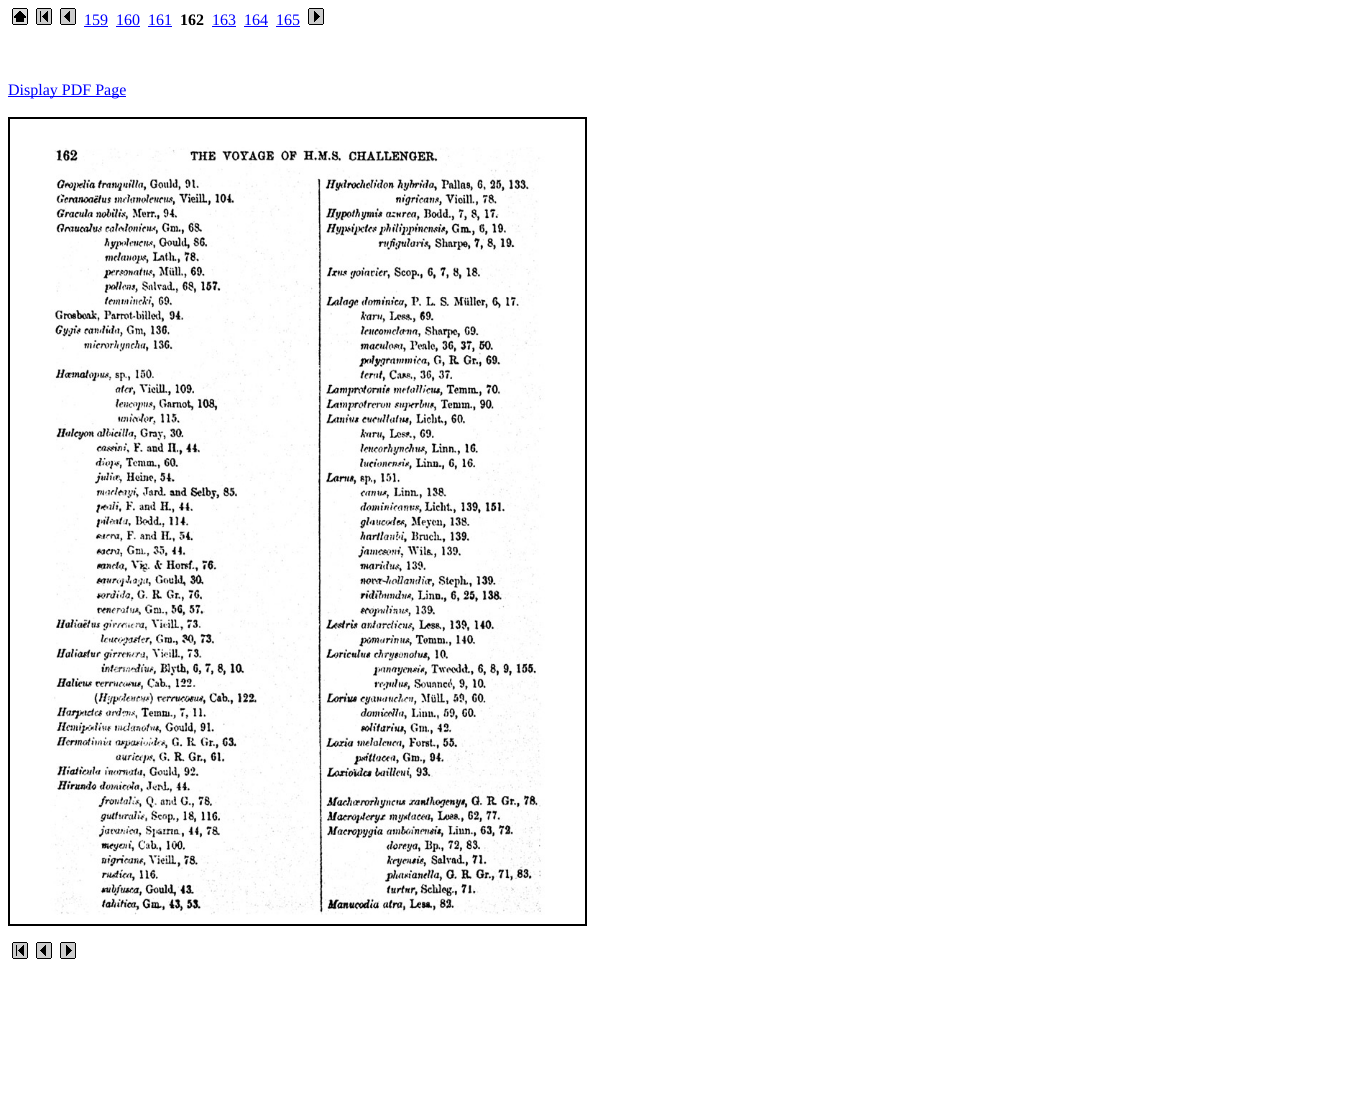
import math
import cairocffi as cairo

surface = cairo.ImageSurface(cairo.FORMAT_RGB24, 1347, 1103)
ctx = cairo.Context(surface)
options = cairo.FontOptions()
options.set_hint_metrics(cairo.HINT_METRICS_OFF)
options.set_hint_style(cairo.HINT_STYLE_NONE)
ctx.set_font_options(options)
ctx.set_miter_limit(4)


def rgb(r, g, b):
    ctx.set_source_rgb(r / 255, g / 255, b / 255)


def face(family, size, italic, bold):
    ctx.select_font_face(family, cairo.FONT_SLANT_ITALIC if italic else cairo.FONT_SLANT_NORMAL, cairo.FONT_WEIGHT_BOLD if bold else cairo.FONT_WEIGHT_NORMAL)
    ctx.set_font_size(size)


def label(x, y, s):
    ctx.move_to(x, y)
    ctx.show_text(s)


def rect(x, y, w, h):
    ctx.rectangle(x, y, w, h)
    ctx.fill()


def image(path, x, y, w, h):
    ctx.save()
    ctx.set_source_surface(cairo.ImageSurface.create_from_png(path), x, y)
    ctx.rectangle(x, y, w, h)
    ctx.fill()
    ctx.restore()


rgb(255, 255, 255)
ctx.paint()
image('image0.png', 12, 8, 16, 17)
image('image1.png', 36, 8, 16, 17)
image('image2.png', 60, 8, 16, 17)
face('Liberation Serif', 16, 0, 0)
rgb(0, 0, 255)
label(84, 25, '159')
rect(84, 26, 24, 1)
label(116, 25, '160')
rect(116, 26, 24, 1)
label(148, 25, '161')
rect(148, 26, 24, 1)
face('Liberation Serif', 16, 0, 1)
rgb(0, 0, 0)
label(180, 25, '162')
face('Liberation Serif', 16, 0, 0)
rgb(0, 0, 255)
label(212, 25, '163')
rect(212, 26, 24, 1)
label(244, 25, '164')
rect(244, 26, 24, 1)
label(276, 25, '165')
rect(276, 26, 24, 1)
image('image3.png', 308, 8, 16, 17)
rect(8, 96, 118, 1)
label(8, 95, 'Display PDF Page')
ctx.rectangle(9, 118, 577, 807)
rgb(0, 0, 0)
ctx.stroke()
image('image4.png', 50, 147, 495, 768)
image('image1.png', 12, 942, 16, 17)
image('image2.png', 36, 942, 16, 17)
image('image3.png', 60, 942, 16, 17)
surface.write_to_png('render.png')
